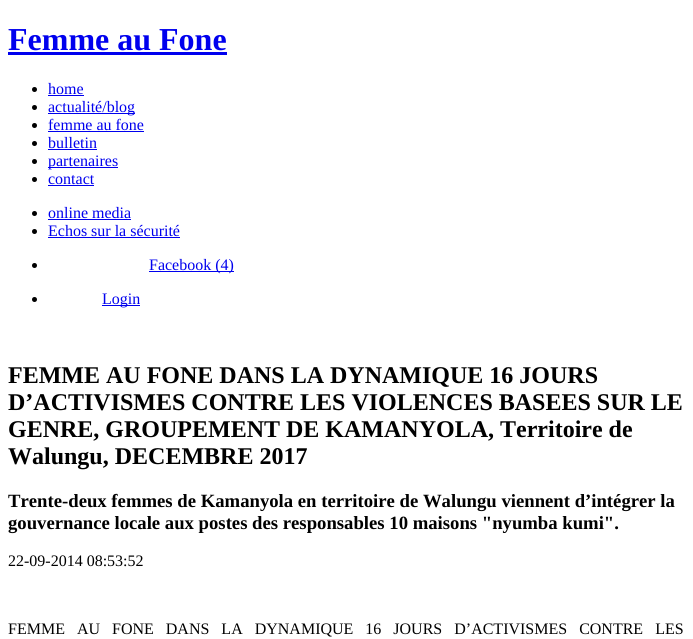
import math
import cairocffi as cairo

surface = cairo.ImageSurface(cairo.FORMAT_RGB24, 693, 639)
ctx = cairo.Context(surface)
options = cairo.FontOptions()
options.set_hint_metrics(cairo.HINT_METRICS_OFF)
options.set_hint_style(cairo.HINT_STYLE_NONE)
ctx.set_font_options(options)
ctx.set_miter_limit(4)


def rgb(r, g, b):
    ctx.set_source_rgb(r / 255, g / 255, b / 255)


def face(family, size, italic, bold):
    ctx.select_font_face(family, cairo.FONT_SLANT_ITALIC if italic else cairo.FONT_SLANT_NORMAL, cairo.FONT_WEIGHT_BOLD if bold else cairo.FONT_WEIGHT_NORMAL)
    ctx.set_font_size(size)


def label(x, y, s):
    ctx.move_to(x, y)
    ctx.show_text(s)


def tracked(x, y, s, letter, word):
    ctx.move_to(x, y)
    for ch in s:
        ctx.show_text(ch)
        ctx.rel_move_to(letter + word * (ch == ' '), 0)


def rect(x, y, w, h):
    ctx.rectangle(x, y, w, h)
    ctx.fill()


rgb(255, 255, 255)
ctx.paint()
face('Liberation Serif', 32, 0, 1)
rgb(0, 0, 238)
label(8, 50, 'Femme au Fone')
rect(8, 52, 219, 3)
rgb(0, 0, 0)
ctx.new_path()
ctx.arc(34.5, 89.5, 2.5, 0, 2 * math.pi)
ctx.fill()
face('Liberation Serif', 16, 0, 0)
rgb(0, 0, 238)
label(48, 94, 'home')
rect(48, 95, 36, 1)
rgb(0, 0, 0)
ctx.new_path()
ctx.arc(34.5, 107.5, 2.5, 0, 2 * math.pi)
ctx.fill()
rgb(0, 0, 238)
rect(48, 113, 87, 1)
label(48, 112, 'actualité/blog')
rgb(0, 0, 0)
ctx.new_path()
ctx.arc(34.5, 125.5, 2.5, 0, 2 * math.pi)
ctx.fill()
rgb(0, 0, 238)
label(48, 130, 'femme au fone')
rect(48, 131, 96, 1)
rgb(0, 0, 0)
ctx.new_path()
ctx.arc(34.5, 143.5, 2.5, 0, 2 * math.pi)
ctx.fill()
rgb(0, 0, 238)
label(48, 148, 'bulletin')
rect(48, 149, 49, 1)
rgb(0, 0, 0)
ctx.new_path()
ctx.arc(34.5, 161.5, 2.5, 0, 2 * math.pi)
ctx.fill()
rgb(0, 0, 238)
rect(48, 167, 70, 1)
label(48, 166, 'partenaires')
rgb(0, 0, 0)
ctx.new_path()
ctx.arc(34.5, 179.5, 2.5, 0, 2 * math.pi)
ctx.fill()
rgb(0, 0, 238)
label(48, 184, 'contact')
rect(48, 185, 46, 1)
rgb(0, 0, 0)
ctx.new_path()
ctx.arc(34.5, 213.5, 2.5, 0, 2 * math.pi)
ctx.fill()
rgb(0, 0, 238)
label(48, 218, 'online media')
rect(48, 219, 83, 1)
rgb(0, 0, 0)
ctx.new_path()
ctx.arc(34.5, 231.5, 2.5, 0, 2 * math.pi)
ctx.fill()
rgb(0, 0, 238)
label(48, 236, 'Echos sur la sécurité')
rect(48, 237, 132, 1)
rgb(0, 0, 0)
ctx.new_path()
ctx.arc(34.5, 265.5, 2.5, 0, 2 * math.pi)
ctx.fill()
rgb(0, 0, 238)
rect(149, 271, 85, 1)
label(149, 270, 'Facebook (4)')
rgb(0, 0, 0)
ctx.new_path()
ctx.arc(34.5, 299.5, 2.5, 0, 2 * math.pi)
ctx.fill()
rgb(0, 0, 238)
rect(102, 305, 38, 1)
label(102, 304, 'Login')
face('Liberation Serif', 24, 0, 1)
rgb(0, 0, 0)
label(8, 383, 'FEMME AU FONE DANS LA DYNAMIQUE 16 JOURS')
label(8, 410, 'D’ACTIVISMES CONTRE LES VIOLENCES BASEES SUR LE')
label(8, 437, 'GENRE, GROUPEMENT DE KAMANYOLA, Territoire de')
label(8, 464, 'Walungu, DECEMBRE 2017')
face('Liberation Serif', 18.7, 0, 1)
label(8, 507, 'Trente-deux femmes de Kamanyola en territoire de Walungu viennent d’intégrer la')
label(8, 529, 'gouvernance locale aux postes des responsables 10 maisons "nyumba kumi".')
face('Liberation Serif', 16, 0, 0)
label(8, 566, '22-09-2014 08:53:52')
tracked(8, 634, 'FEMME AU FONE DANS LA DYNAMIQUE 16 JOURS D’ACTIVISMES CONTRE LES', 0, 8)
surface.write_to_png('render.png')
